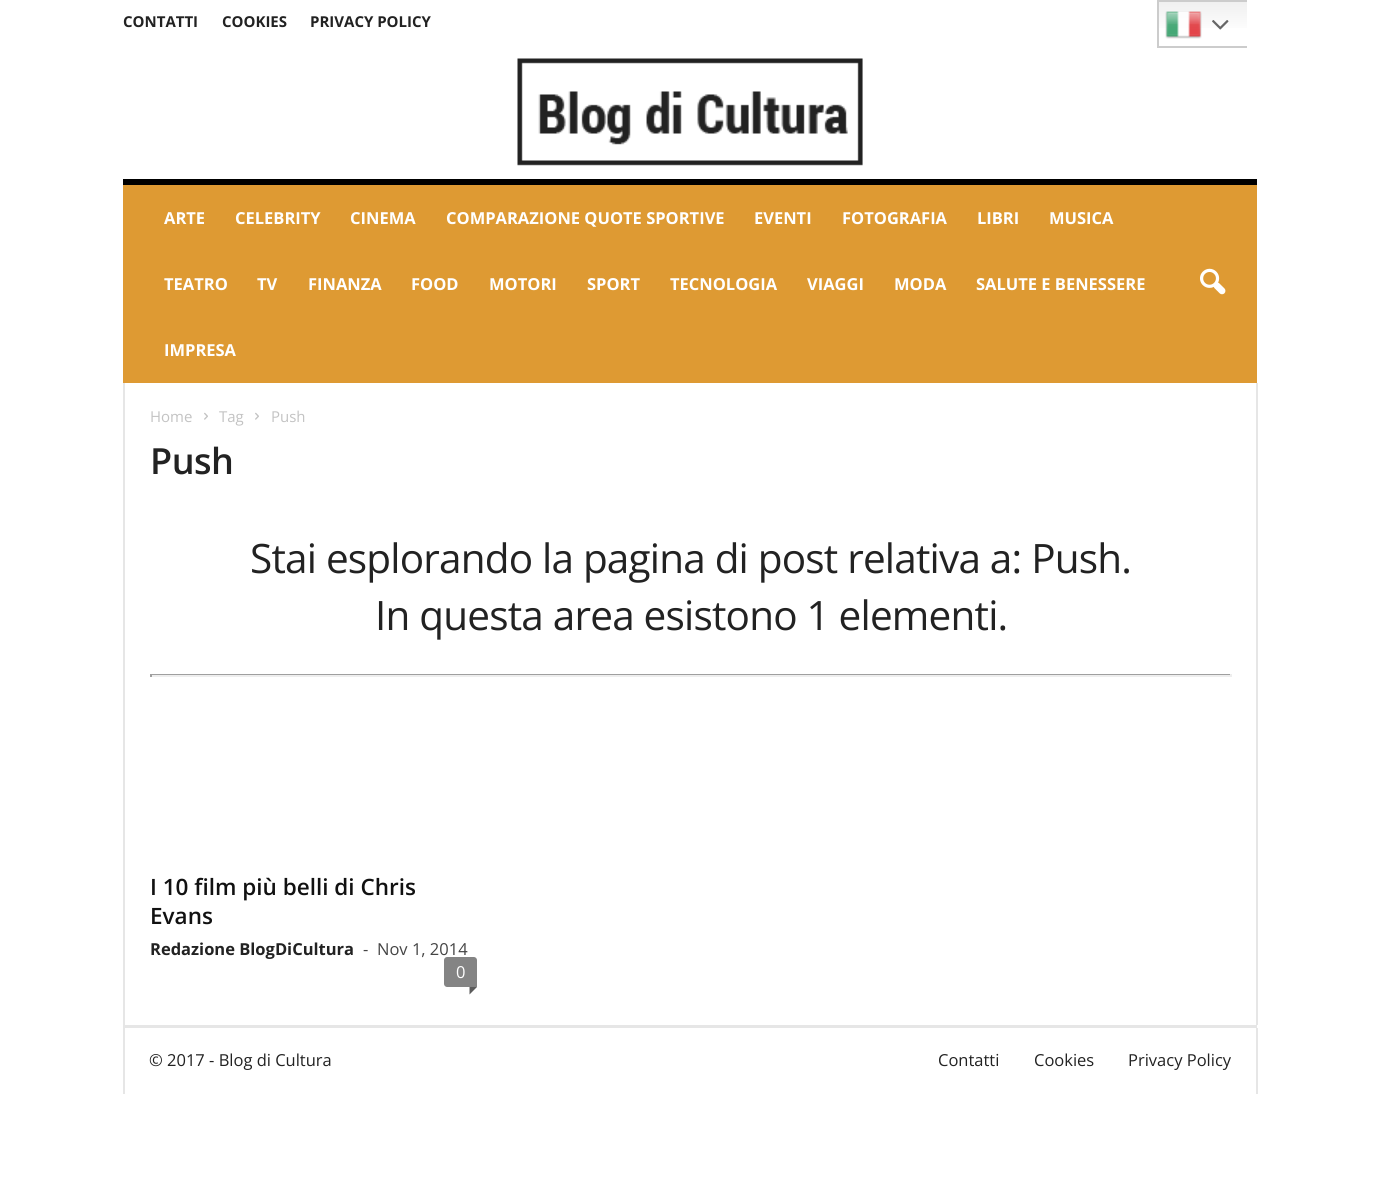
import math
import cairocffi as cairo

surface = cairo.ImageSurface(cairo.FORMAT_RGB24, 1379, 1203)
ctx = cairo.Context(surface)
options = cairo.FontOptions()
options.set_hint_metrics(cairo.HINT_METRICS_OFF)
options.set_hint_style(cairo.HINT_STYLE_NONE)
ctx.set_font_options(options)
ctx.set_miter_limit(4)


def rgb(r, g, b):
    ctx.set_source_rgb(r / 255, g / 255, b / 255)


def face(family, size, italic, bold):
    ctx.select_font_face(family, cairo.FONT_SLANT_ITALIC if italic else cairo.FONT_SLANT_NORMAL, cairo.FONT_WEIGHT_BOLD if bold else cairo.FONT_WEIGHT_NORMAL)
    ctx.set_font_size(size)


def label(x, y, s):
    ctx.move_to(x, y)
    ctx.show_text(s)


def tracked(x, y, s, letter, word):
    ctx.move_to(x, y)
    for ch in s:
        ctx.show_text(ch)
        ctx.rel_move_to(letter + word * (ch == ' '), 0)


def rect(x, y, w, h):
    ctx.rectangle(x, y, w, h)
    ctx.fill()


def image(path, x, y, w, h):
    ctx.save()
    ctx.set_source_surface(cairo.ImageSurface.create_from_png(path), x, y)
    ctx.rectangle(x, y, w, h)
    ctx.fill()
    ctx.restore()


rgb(255, 255, 255)
ctx.paint()
face('Open Sans', 15, 0, 1)
rgb(34, 34, 34)
label(123, 27, 'CONTATTI')
label(222, 27, 'COOKIES')
label(310, 27, 'PRIVACY POLICY')
image('image0.png', 517, 58, 346, 108)
rgb(222, 154, 51)
rect(123, 185, 1134, 198)
rgb(0, 0, 0)
rect(123, 179, 1134, 6)
face('Open Sans', 16.5, 0, 1)
rgb(255, 255, 255)
label(164, 224, 'ARTE')
label(235, 224, 'CELEBRITY')
label(350, 224, 'CINEMA')
label(446, 224, 'COMPARAZIONE QUOTE SPORTIVE')
label(754, 224, 'EVENTI')
label(842, 224, 'FOTOGRAFIA')
label(977, 224, 'LIBRI')
label(1049, 224, 'MUSICA')
label(164, 290, 'TEATRO')
label(257, 290, 'TV')
label(308, 290, 'FINANZA')
label(411, 290, 'FOOD')
label(489, 290, 'MOTORI')
label(587, 290, 'SPORT')
label(670, 290, 'TECNOLOGIA')
label(807, 290, 'VIAGGI')
label(894, 290, 'MODA')
label(976, 290, 'SALUTE E BENESSERE')
label(164, 356, 'IMPRESA')
image('image1.png', 1200, 268, 26, 27)
rgb(230, 230, 230)
rect(123, 383, 2, 642)
face('Open Sans', 15, 0, 0)
rgb(195, 195, 195)
label(150, 422, 'Home')
image('image2.png', 204, 412, 4, 8)
label(219, 422, 'Tag')
image('image2.png', 255, 412, 4, 8)
label(271, 422, 'Push')
face('Open Sans SemiBold', 36, 0, 0)
rgb(34, 34, 34)
tracked(150, 474, 'Push', -0.5, 0)
face('Open Sans', 40.5, 0, 0)
tracked(250, 573, 'Stai esplorando la pagina di post relativa a: Push.', -0.8, 0)
tracked(375, 630, 'In questa area esistono 1 elementi.', -0.8, 0)
rgb(159, 159, 159)
rect(150, 674, 1082, 1)
rgb(238, 238, 238)
rect(1230, 674, 2, 3)
rect(150, 675, 1082, 2)
rgb(159, 159, 159)
rect(150, 674, 2, 3)
face('Open Sans SemiBold', 22.5, 0, 0)
rgb(17, 17, 17)
label(150, 895, 'I 10 film più belli di Chris')
label(150, 924, 'Evans')
face('Open Sans', 16.5, 0, 1)
rgb(34, 34, 34)
label(150, 955, 'Redazione BlogDiCultura')
face('Open Sans', 16.5, 0, 0)
rgb(68, 68, 68)
label(363, 955, '-')
label(377, 955, 'Nov 1, 2014')
rgb(132, 132, 132)
ctx.new_path()
ctx.move_to(447, 957)
ctx.line_to(474, 957)
ctx.curve_to(475.5, 957, 477, 958.5, 477, 960)
ctx.line_to(477, 987)
ctx.line_to(447, 987)
ctx.curve_to(445.5, 987, 444, 985.5, 444, 984)
ctx.line_to(444, 960)
ctx.curve_to(444, 958.5, 445.5, 957, 447, 957)
ctx.close_path()
ctx.fill()
rgb(255, 255, 255)
label(456, 978, '0')
rgb(91, 91, 91)
ctx.new_path()
ctx.move_to(469.5, 987)
ctx.line_to(477, 987)
ctx.line_to(469.5, 994.5)
ctx.close_path()
ctx.fill()
rgb(230, 230, 230)
rect(1256, 383, 2, 642)
rect(123, 1025, 1134, 3)
rect(123, 1028, 2, 66)
rgb(34, 34, 34)
label(149, 1066, '© 2017 - Blog di Cultura')
label(938, 1066, 'Contatti')
label(1034, 1066, 'Cookies')
label(1128, 1066, 'Privacy Policy')
rgb(230, 230, 230)
rect(1256, 1028, 2, 66)
gradient = cairo.LinearGradient(1202, 0, 1202, 48)
gradient.add_color_stop_rgba(0, 0.937, 0.937, 0.937, 1)
gradient.add_color_stop_rgba(0.7, 1, 1, 1, 1)
ctx.set_source(gradient)
rect(1159, 2, 88, 26)
ctx.save()
ctx.rectangle(1157, 0, 90, 48)
ctx.clip()
ctx.rectangle(1158, 1, 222, 46)
rgb(204, 204, 204)
ctx.stroke()
ctx.restore()
image('image3.png', 1165, 11, 37, 28)
image('image4.png', 1212, 20, 17, 10)
surface.write_to_png('render.png')
